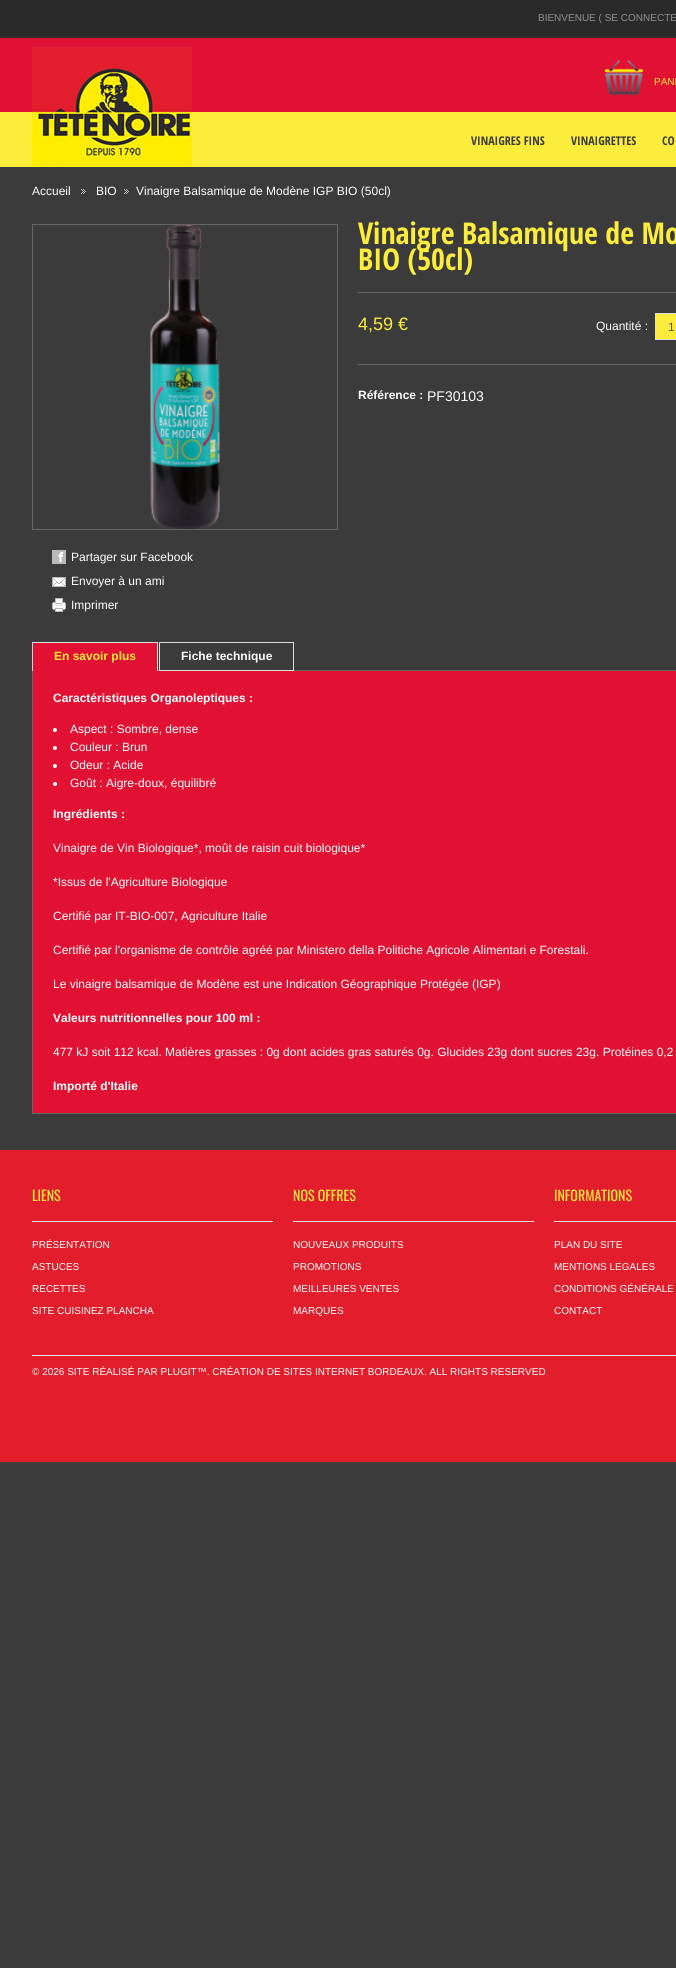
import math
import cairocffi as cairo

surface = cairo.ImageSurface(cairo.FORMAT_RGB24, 676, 1968)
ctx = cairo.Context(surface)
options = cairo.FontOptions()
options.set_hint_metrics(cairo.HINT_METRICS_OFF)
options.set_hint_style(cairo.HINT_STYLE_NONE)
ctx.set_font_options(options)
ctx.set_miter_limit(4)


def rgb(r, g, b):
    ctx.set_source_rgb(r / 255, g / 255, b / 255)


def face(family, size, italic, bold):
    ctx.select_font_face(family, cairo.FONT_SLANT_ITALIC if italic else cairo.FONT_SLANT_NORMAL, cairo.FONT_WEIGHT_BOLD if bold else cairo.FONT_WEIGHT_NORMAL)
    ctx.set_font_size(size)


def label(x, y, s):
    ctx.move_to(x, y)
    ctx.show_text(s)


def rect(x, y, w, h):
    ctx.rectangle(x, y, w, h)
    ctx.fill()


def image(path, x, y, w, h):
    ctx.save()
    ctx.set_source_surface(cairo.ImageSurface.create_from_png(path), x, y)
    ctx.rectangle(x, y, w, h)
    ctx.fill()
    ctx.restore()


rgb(59, 59, 59)
ctx.paint()
image('image0.png', 0, 0, 676, 167)
image('image1.png', 32, 47, 160, 120)
face('Liberation Sans', 10, 0, 0)
rgb(144, 145, 145)
label(538, 21, 'BIENVENUE ( SE CONNECTE')
image('image2.png', 604, 60, 40, 35)
rgb(252, 237, 61)
label(654, 85, 'PANI')
face('Open Sans Condensed', 12, 0, 1)
rgb(59, 59, 59)
label(471, 145, 'VINAIGRES FINS')
label(571, 145, 'VINAIGRETTES')
label(662, 145, 'CO')
face('Liberation Sans', 12, 0, 0)
rgb(255, 255, 255)
label(32, 195, 'Accueil')
image('image3.png', 81, 189, 5, 5)
label(96, 195, 'BIO')
image('image3.png', 124, 189, 5, 5)
label(136, 195, 'Vinaigre Balsamique de Modène IGP BIO (50cl)')
face('Open Sans Condensed', 30, 0, 1)
rgb(252, 237, 61)
label(358, 244, 'Vinaigre Balsamique de Mo')
label(358, 270, 'BIO (50cl)')
rgb(102, 102, 102)
rect(358, 292, 318, 1)
face('Liberation Sans', 18, 0, 0)
rgb(252, 237, 61)
label(358, 330, '4,59 €')
face('Liberation Sans', 12, 0, 0)
rgb(255, 255, 255)
label(596, 330, 'Quantité :')
rgb(251, 236, 60)
ctx.rectangle(655.5, 313.5, 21, 26)
ctx.fill_preserve()
rgb(221, 221, 221)
ctx.set_line_width(1)
ctx.stroke()
rgb(85, 85, 85)
label(668, 331, '1')
rgb(102, 102, 102)
rect(358, 364, 318, 1)
face('Liberation Sans', 12, 0, 1)
rgb(255, 255, 255)
label(358, 399, 'Référence :')
face('Liberation Sans', 14, 0, 0)
label(427, 401, 'PF30103')
ctx.rectangle(32.5, 224.5, 305, 305)
rgb(102, 102, 102)
ctx.stroke()
image('image4.png', 150, 225, 70, 304)
image('image5.png', 52, 550, 14, 14)
face('Liberation Sans', 12, 0, 0)
rgb(255, 255, 255)
label(71, 561, 'Partager sur Facebook')
image('image6.png', 52, 577, 14, 10)
label(71, 585, 'Envoyer à un ami')
image('image7.png', 52, 598, 14, 14)
label(71, 609, 'Imprimer')
rgb(225, 17, 51)
ctx.rectangle(32.5, 670.5, 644, 443)
ctx.fill_preserve()
rgb(102, 102, 102)
ctx.stroke()
rgb(225, 17, 51)
rect(33, 643, 124, 28)
rgb(221, 221, 221)
rect(32, 642, 126, 1)
rect(157, 642, 1, 29)
rect(32, 642, 1, 29)
face('Liberation Sans', 12, 0, 1)
rgb(252, 237, 61)
label(54, 660, 'En savoir plus')
ctx.rectangle(159.5, 642.5, 134, 28)
rgb(221, 221, 221)
ctx.stroke()
rgb(255, 255, 255)
label(181, 660, 'Fiche technique')
label(53, 702, 'Caractéristiques Organoleptiques :')
ctx.new_path()
ctx.arc(55, 730, 2, 0, 2 * math.pi)
ctx.fill()
face('Liberation Sans', 12, 0, 0)
label(70, 733, 'Aspect : Sombre, dense')
ctx.new_path()
ctx.arc(55, 748, 2, 0, 2 * math.pi)
ctx.fill()
label(70, 751, 'Couleur : Brun')
ctx.new_path()
ctx.arc(55, 766, 2, 0, 2 * math.pi)
ctx.fill()
label(70, 769, 'Odeur : Acide')
ctx.new_path()
ctx.arc(55, 784, 2, 0, 2 * math.pi)
ctx.fill()
label(70, 787, 'Goût : Aigre-doux, équilibré')
face('Liberation Sans', 12, 0, 1)
label(53, 818, 'Ingrédients :')
face('Liberation Sans', 12, 0, 0)
label(53, 852, 'Vinaigre de Vin Biologique*, moût de raisin cuit biologique*')
label(53, 886, '*Issus de l\'Agriculture Biologique')
label(53, 920, 'Certifié par IT-BIO-007, Agriculture Italie')
label(53, 954, 'Certifié par l\'organisme de contrôle agréé par Ministero della Politiche Agricole Alimentari e Forestali.')
label(53, 988, 'Le vinaigre balsamique de Modène est une Indication Géographique Protégée (IGP)')
face('Liberation Sans', 12, 0, 1)
label(53, 1022, 'Valeurs nutritionnelles pour 100 ml :')
face('Liberation Sans', 12, 0, 0)
label(53, 1056, '477 kJ soit 112 kcal. Matières grasses : 0g dont acides gras saturés 0g. Glucides 23g dont sucres 23g. Protéines 0,2')
face('Liberation Sans', 12, 0, 1)
label(53, 1090, 'Importé d\'Italie')
rgb(226, 30, 44)
rect(0, 1150, 676, 312)
rgb(228, 228, 228)
rect(32, 1221, 241, 1)
face('Oswald', 14, 0, 0)
rgb(252, 237, 61)
label(32, 1201, 'LIENS')
face('Liberation Sans', 10, 0, 0)
rgb(255, 255, 255)
label(32, 1248, 'PRÉSENTATION')
label(32, 1270, 'ASTUCES')
label(32, 1292, 'RECETTES')
label(32, 1314, 'SITE CUISINEZ PLANCHA')
rgb(228, 228, 228)
rect(293, 1221, 241, 1)
face('Oswald', 14, 0, 0)
rgb(252, 237, 61)
label(293, 1201, 'NOS OFFRES')
face('Liberation Sans', 10, 0, 0)
rgb(255, 255, 255)
label(293, 1248, 'NOUVEAUX PRODUITS')
label(293, 1270, 'PROMOTIONS')
label(293, 1292, 'MEILLEURES VENTES')
label(293, 1314, 'MARQUES')
rgb(228, 228, 228)
rect(554, 1221, 122, 1)
face('Oswald', 14, 0, 0)
rgb(252, 237, 61)
label(554, 1201, 'INFORMATIONS')
face('Liberation Sans', 10, 0, 0)
rgb(255, 255, 255)
label(554, 1248, 'PLAN DU SITE')
label(554, 1270, 'MENTIONS LEGALES')
label(554, 1292, 'CONDITIONS GÉNÉRALE')
label(554, 1314, 'CONTACT')
rgb(228, 228, 228)
rect(32, 1355, 644, 1)
rgb(255, 255, 255)
label(32, 1375, '© 2026 SITE RÉALISÉ PAR PLUGIT™. CRÉATION DE SITES INTERNET BORDEAUX. ALL RIGHTS RESERVED')
surface.write_to_png('render.png')
